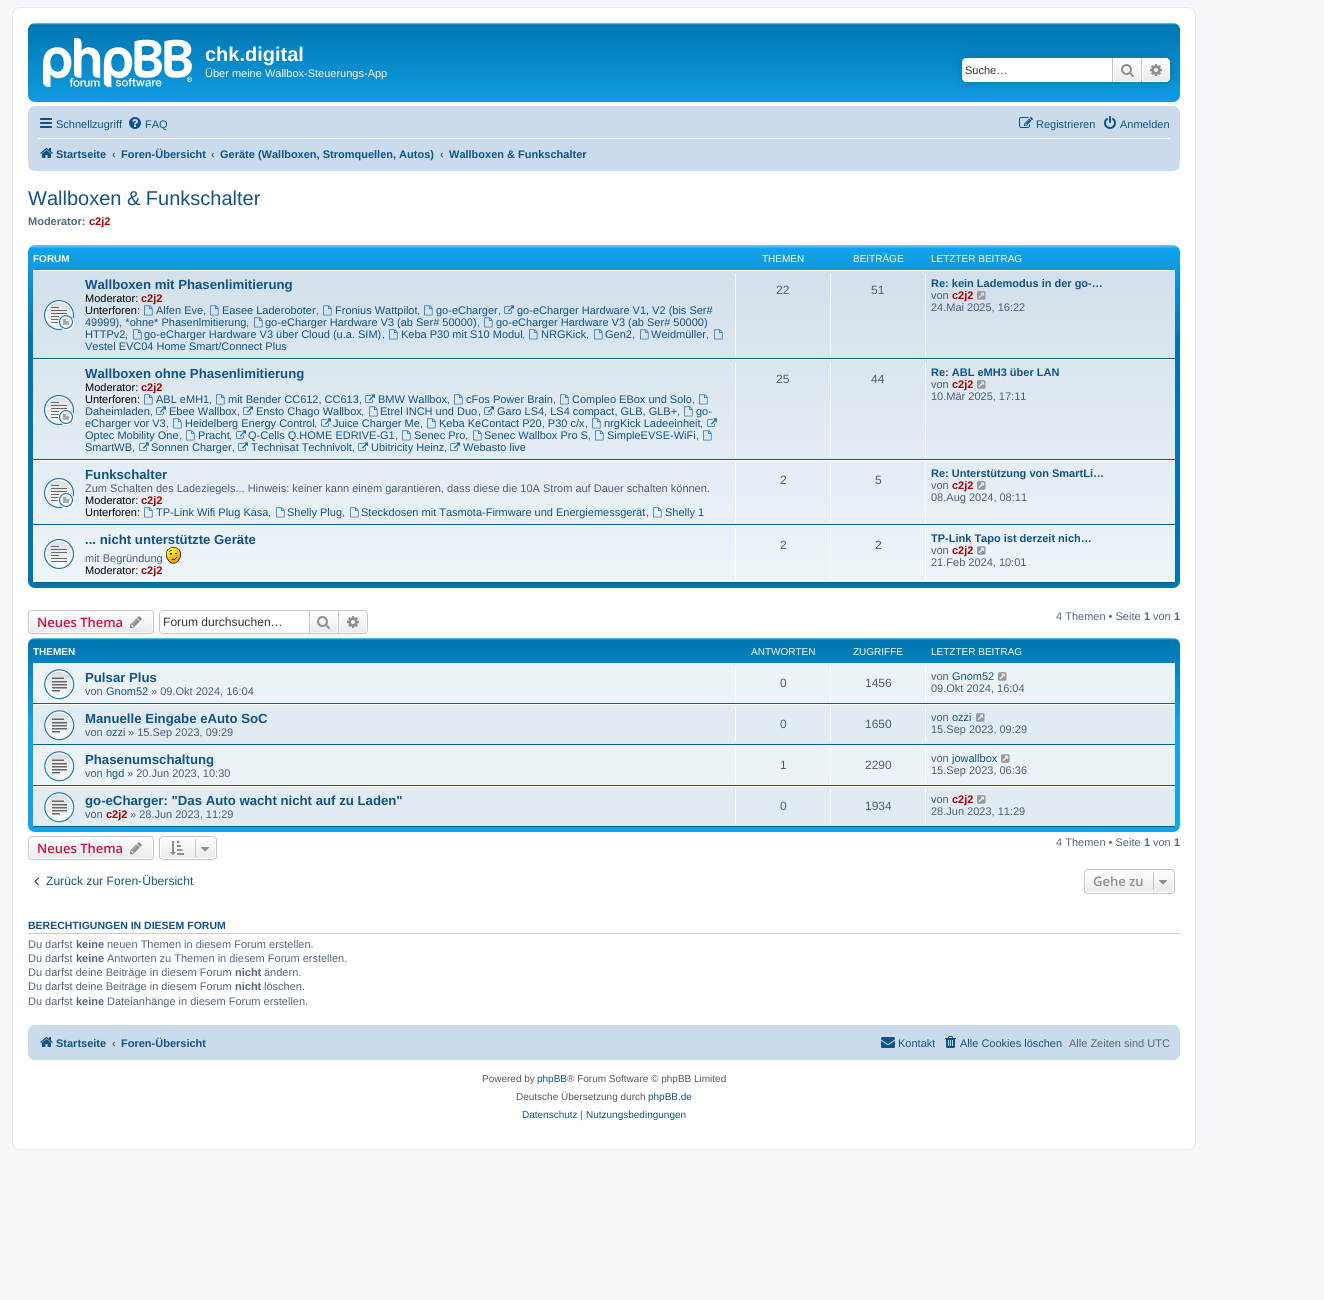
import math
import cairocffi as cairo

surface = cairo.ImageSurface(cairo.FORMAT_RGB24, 1324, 1300)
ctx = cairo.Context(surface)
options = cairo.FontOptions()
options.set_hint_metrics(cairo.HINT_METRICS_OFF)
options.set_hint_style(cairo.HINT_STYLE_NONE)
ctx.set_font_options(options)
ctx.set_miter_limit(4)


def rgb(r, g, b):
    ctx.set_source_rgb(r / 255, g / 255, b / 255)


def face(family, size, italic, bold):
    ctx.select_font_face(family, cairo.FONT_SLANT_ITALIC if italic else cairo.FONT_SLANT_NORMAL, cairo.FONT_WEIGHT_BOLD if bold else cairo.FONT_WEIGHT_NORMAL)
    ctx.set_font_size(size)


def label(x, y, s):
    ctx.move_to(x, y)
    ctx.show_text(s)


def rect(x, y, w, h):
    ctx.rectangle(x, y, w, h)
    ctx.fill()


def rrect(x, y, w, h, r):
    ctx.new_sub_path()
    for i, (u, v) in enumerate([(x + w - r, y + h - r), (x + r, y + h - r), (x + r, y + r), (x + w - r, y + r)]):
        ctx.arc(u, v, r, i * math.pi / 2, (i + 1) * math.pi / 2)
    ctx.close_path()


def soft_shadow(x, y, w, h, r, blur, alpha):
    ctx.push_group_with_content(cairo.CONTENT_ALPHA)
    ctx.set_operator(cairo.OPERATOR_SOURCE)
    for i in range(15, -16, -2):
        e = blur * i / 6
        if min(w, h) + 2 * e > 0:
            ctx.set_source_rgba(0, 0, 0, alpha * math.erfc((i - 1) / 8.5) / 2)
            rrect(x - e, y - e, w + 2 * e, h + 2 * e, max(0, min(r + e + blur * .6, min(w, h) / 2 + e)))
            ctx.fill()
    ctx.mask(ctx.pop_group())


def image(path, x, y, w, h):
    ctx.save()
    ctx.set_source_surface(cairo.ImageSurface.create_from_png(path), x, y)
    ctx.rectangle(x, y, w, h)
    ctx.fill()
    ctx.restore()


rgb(245, 247, 250)
ctx.paint()
rgb(255, 255, 255)
rrect(12.5, 7.5, 1183, 1142, 7.5)
ctx.fill_preserve()
rgb(230, 233, 237)
ctx.set_line_width(1)
ctx.stroke()
gradient = cairo.LinearGradient(604, 23, 604, 115)
gradient.add_color_stop_rgba(0, 0.416, 0.808, 1, 1)
gradient.add_color_stop_rgba(0.02, 0, 0.463, 0.694, 1)
gradient.add_color_stop_rgba(1, 0.071, 0.639, 0.922, 1)
ctx.set_source(gradient)
rrect(28, 23, 1152, 79, 7)
ctx.fill()
image('image0.png', 43, 38, 149, 49)
face('Liberation Sans', 20, 0, 1)
rgb(255, 255, 255)
label(205, 61, 'chk.digital')
face('Liberation Sans', 11, 0, 0)
label(205, 77, 'Über meine Wallbox-Steuerungs-App')
rgb(0, 117, 176)
soft_shadow(962, 58, 208, 24, 4, 5, 1)
rgb(255, 255, 255)
ctx.new_path()
ctx.move_to(966, 58)
ctx.line_to(1112, 58)
ctx.line_to(1112, 82)
ctx.line_to(966, 82)
ctx.curve_to(964, 82, 962, 80, 962, 78)
ctx.line_to(962, 62)
ctx.curve_to(962, 60, 964, 58, 966, 58)
ctx.close_path()
ctx.fill()
rgb(51, 51, 51)
label(965, 74, 'Suche…')
gradient = cairo.LinearGradient(1127, 58, 1127, 82)
gradient.add_color_stop_rgba(0, 1, 1, 1, 1)
gradient.add_color_stop_rgba(1, 0.914, 0.914, 0.914, 1)
ctx.set_source(gradient)
rect(1114, 59, 26, 22)
ctx.rectangle(1113.5, 58.5, 27, 23)
rgb(255, 255, 255)
ctx.stroke()
rgb(199, 195, 191)
rect(1141, 58, 1, 24)
rect(1112, 58, 1, 24)
image('image1.png', 1121, 64, 13, 13)
gradient = cairo.LinearGradient(1156, 58, 1156, 82)
gradient.add_color_stop_rgba(0, 1, 1, 1, 1)
gradient.add_color_stop_rgba(1, 0.914, 0.914, 0.914, 1)
ctx.set_source(gradient)
ctx.new_path()
ctx.move_to(1142.5, 58.5)
ctx.line_to(1166, 58.5)
ctx.curve_to(1168, 58.5, 1169.5, 60, 1169.5, 62)
ctx.line_to(1169.5, 78)
ctx.curve_to(1169.5, 80, 1168, 81.5, 1166, 81.5)
ctx.line_to(1142.5, 81.5)
ctx.close_path()
ctx.fill_preserve()
rgb(255, 255, 255)
ctx.stroke()
image('image2.png', 1150, 64, 12, 12)
rgb(202, 220, 235)
rrect(28, 106, 1152, 65, 7)
ctx.fill()
image('image3.png', 40, 118, 12, 10)
rgb(16, 82, 137)
label(56, 128, 'Schnellzugriff')
image('image4.png', 129, 117, 12, 12)
label(145, 128, 'FAQ')
image('image5.png', 1019, 117, 14, 11)
label(1036, 128, 'Registrieren')
image('image6.png', 1104, 116, 12, 13)
label(1120, 128, 'Anmelden')
rgb(255, 255, 255)
rect(38, 138, 1132, 1)
image('image7.png', 40, 148, 13, 10)
face('Liberation Sans', 11, 0, 1)
rgb(16, 82, 137)
label(56, 158, 'Startseite')
rgb(83, 100, 130)
label(112, 158, '‹')
rgb(16, 82, 137)
label(121, 158, 'Foren-Übersicht')
rgb(83, 100, 130)
label(211, 158, '‹')
rgb(16, 82, 137)
label(220, 158, 'Geräte (Wallboxen, Stromquellen, Autos)')
rgb(83, 100, 130)
label(440, 158, '‹')
rgb(16, 82, 137)
label(449, 158, 'Wallboxen & Funkschalter')
face('Liberation Sans', 20, 0, 0)
label(28, 205, 'Wallboxen & Funkschalter')
face('Liberation Sans', 11, 0, 1)
rgb(83, 100, 130)
label(28, 225, 'Moderator:')
rgb(170, 0, 0)
label(89, 225, 'c2j2')
gradient = cairo.LinearGradient(604, 245, 604, 588)
gradient.add_color_stop_rgba(0, 0.416, 0.808, 1, 1)
gradient.add_color_stop_rgba(0.01, 0.071, 0.639, 0.922, 1)
gradient.add_color_stop_rgba(0.27, 0, 0.463, 0.694, 1)
gradient.add_color_stop_rgba(1, 0, 0.463, 0.694, 1)
ctx.set_source(gradient)
rrect(28, 245, 1152, 343, 7)
ctx.fill()
face('Liberation Sans', 10, 0, 1)
rgb(255, 255, 255)
label(33, 262, 'FORUM')
face('Liberation Sans', 10, 0, 0)
label(762, 262, 'THEMEN')
label(853, 262, 'BEITRÄGE')
label(931, 262, 'LETZTER BEITRAG')
gradient = cairo.LinearGradient(604, 270, 604, 583)
gradient.add_color_stop_rgba(0, 0.824, 0.878, 0.922, 1)
gradient.add_color_stop_rgba(1, 0.933, 0.961, 0.976, 1)
ctx.set_source(gradient)
rect(33, 271, 1142, 311)
rgb(255, 255, 255)
rect(33, 270, 1142, 1)
rgb(0, 96, 143)
rect(33, 358, 1142, 1)
image('image8.png', 44, 300, 30, 30)
face('Liberation Sans', 13.2, 0, 1)
rgb(16, 82, 137)
label(85, 289, 'Wallboxen mit Phasenlimitierung')
face('Liberation Sans', 11, 0, 0)
rgb(0, 0, 0)
label(85, 302, 'Moderator:')
face('Liberation Sans', 11, 0, 1)
rgb(170, 0, 0)
label(141, 302, 'c2j2')
face('Liberation Sans', 11, 0, 0)
rgb(0, 0, 0)
label(85, 314, 'Unterforen:')
image('image9.png', 504, 305, 10, 9)
rgb(16, 82, 137)
label(517, 314, 'go-eCharger Hardware V1, V2 (bis Ser#')
label(85, 326, '49999), *ohne* Phasenlmitierung')
image('image10.png', 144, 305, 9, 11)
label(156, 314, 'Alfen Eve')
rgb(76, 93, 119)
label(203, 314, ',')
image('image10.png', 210, 305, 9, 11)
rgb(16, 82, 137)
label(222, 314, 'Easee Laderoboter')
rgb(76, 93, 119)
label(316, 314, ',')
image('image10.png', 323, 305, 9, 11)
rgb(16, 82, 137)
label(335, 314, 'Fronius Wattpilot')
rgb(76, 93, 119)
label(417, 314, ',')
image('image10.png', 424, 305, 9, 11)
rgb(16, 82, 137)
label(436, 314, 'go-eCharger')
rgb(76, 93, 119)
label(498, 314, ',')
image('image11.png', 484, 317, 9, 11)
rgb(16, 82, 137)
label(496, 326, 'go-eCharger Hardware V3 (ab Ser# 50000)')
label(85, 338, 'HTTPv2')
rgb(76, 93, 119)
label(246, 326, ',')
image('image11.png', 254, 317, 9, 11)
rgb(16, 82, 137)
label(265, 326, 'go-eCharger Hardware V3 (ab Ser# 50000)')
rgb(76, 93, 119)
label(477, 326, ',')
label(125, 338, ',')
image('image12.png', 133, 329, 9, 11)
rgb(16, 82, 137)
label(144, 338, 'go-eCharger Hardware V3 über Cloud (u.a. SIM)')
rgb(76, 93, 119)
label(382, 338, ',')
image('image12.png', 389, 329, 9, 11)
rgb(16, 82, 137)
label(401, 338, 'Keba P30 mit S10 Modul')
rgb(76, 93, 119)
label(522, 338, ',')
image('image12.png', 529, 329, 9, 11)
rgb(16, 82, 137)
label(541, 338, 'NRGKick')
rgb(76, 93, 119)
label(586, 338, ',')
image('image12.png', 594, 329, 9, 11)
rgb(16, 82, 137)
label(605, 338, 'Gen2')
rgb(76, 93, 119)
label(632, 338, ',')
image('image12.png', 640, 329, 9, 11)
rgb(16, 82, 137)
label(651, 338, 'Weidmüller')
rgb(76, 93, 119)
label(706, 338, ',')
image('image12.png', 714, 329, 9, 11)
rgb(16, 82, 137)
label(85, 350, 'Vestel EVC04 Home Smart/Connect Plus')
rgb(255, 255, 255)
rect(735, 273, 1, 83)
face('Liberation Sans', 12, 0, 0)
rgb(76, 93, 119)
label(776, 294, '22')
rgb(255, 255, 255)
rect(830, 273, 1, 83)
rgb(76, 93, 119)
label(871, 294, '51')
rgb(255, 255, 255)
rect(925, 273, 1, 83)
face('Liberation Sans', 11, 0, 1)
rgb(16, 82, 137)
label(931, 287, 'Re: kein Lademodus in der go-…')
face('Liberation Sans', 11, 0, 0)
rgb(76, 93, 119)
label(931, 299, 'von')
face('Liberation Sans', 11, 0, 1)
rgb(170, 0, 0)
label(952, 299, 'c2j2')
image('image13.png', 977, 291, 9, 9)
face('Liberation Sans', 11, 0, 0)
rgb(76, 93, 119)
label(931, 311, '24.Mai 2025, 16:22')
rgb(255, 255, 255)
rect(33, 359, 1142, 1)
rgb(0, 96, 143)
rect(33, 459, 1142, 1)
image('image14.png', 44, 395, 30, 30)
face('Liberation Sans', 13.2, 0, 1)
rgb(16, 82, 137)
label(85, 378, 'Wallboxen ohne Phasenlimitierung')
face('Liberation Sans', 11, 0, 0)
rgb(0, 0, 0)
label(85, 391, 'Moderator:')
face('Liberation Sans', 11, 0, 1)
rgb(170, 0, 0)
label(141, 391, 'c2j2')
face('Liberation Sans', 11, 0, 0)
rgb(0, 0, 0)
label(85, 403, 'Unterforen:')
image('image15.png', 144, 394, 9, 11)
rgb(16, 82, 137)
label(156, 403, 'ABL eMH1')
rgb(76, 93, 119)
label(209, 403, ',')
image('image15.png', 216, 394, 9, 11)
rgb(16, 82, 137)
label(228, 403, 'mit Bender CC612, CC613')
rgb(76, 93, 119)
label(359, 403, ',')
image('image16.png', 365, 394, 10, 9)
rgb(16, 82, 137)
label(378, 403, 'BMW Wallbox')
rgb(76, 93, 119)
label(447, 403, ',')
image('image15.png', 454, 394, 9, 11)
rgb(16, 82, 137)
label(466, 403, 'cFos Power Brain')
rgb(76, 93, 119)
label(553, 403, ',')
image('image15.png', 560, 394, 9, 11)
rgb(16, 82, 137)
label(572, 403, 'Compleo EBox und Solo')
rgb(76, 93, 119)
label(692, 403, ',')
image('image15.png', 699, 394, 9, 11)
rgb(16, 82, 137)
label(85, 415, 'Daheimladen')
image('image17.png', 156, 406, 10, 9)
label(169, 415, 'Ebee Wallbox')
image('image17.png', 243, 406, 10, 9)
label(256, 415, 'Ensto Chago Wallbox')
image('image18.png', 369, 406, 9, 11)
label(380, 415, 'Etrel INCH und Duo')
image('image17.png', 484, 406, 10, 9)
label(497, 415, 'Garo LS4, LS4 compact, GLB, GLB+')
image('image18.png', 684, 406, 9, 11)
label(696, 415, 'go-')
label(85, 427, 'eCharger vor V3')
rgb(76, 93, 119)
label(150, 415, ',')
label(237, 415, ',')
label(361, 415, ',')
label(478, 415, ',')
label(677, 415, ',')
label(166, 427, ',')
image('image19.png', 173, 418, 9, 11)
rgb(16, 82, 137)
label(185, 427, 'Heidelberg Energy Control')
rgb(76, 93, 119)
label(314, 427, ',')
image('image20.png', 321, 418, 10, 9)
rgb(16, 82, 137)
label(333, 427, 'Juice Charger Me')
rgb(76, 93, 119)
label(420, 427, ',')
image('image19.png', 427, 418, 9, 11)
rgb(16, 82, 137)
label(439, 427, 'Keba KeContact P20, P30 c/x')
rgb(76, 93, 119)
label(585, 427, ',')
image('image19.png', 592, 418, 9, 11)
rgb(16, 82, 137)
label(604, 427, 'nrgKick Ladeeinheit')
rgb(76, 93, 119)
label(700, 427, ',')
image('image20.png', 707, 418, 10, 9)
rgb(16, 82, 137)
label(85, 439, 'Optec Mobility One')
rgb(76, 93, 119)
label(179, 439, ',')
image('image21.png', 186, 430, 9, 11)
rgb(16, 82, 137)
label(198, 439, 'Pracht')
rgb(76, 93, 119)
label(229, 439, ',')
image('image22.png', 236, 430, 10, 9)
rgb(16, 82, 137)
label(248, 439, 'Q-Cells Q.HOME EDRIVE-G1')
rgb(76, 93, 119)
label(395, 439, ',')
image('image21.png', 402, 430, 9, 11)
rgb(16, 82, 137)
label(414, 439, 'Senec Pro')
rgb(76, 93, 119)
label(465, 439, ',')
image('image21.png', 473, 430, 9, 11)
rgb(16, 82, 137)
label(484, 439, 'Senec Wallbox Pro S')
rgb(76, 93, 119)
label(588, 439, ',')
image('image21.png', 595, 430, 9, 11)
rgb(16, 82, 137)
label(607, 439, 'SimpleEVSE-WiFi')
rgb(76, 93, 119)
label(696, 439, ',')
image('image21.png', 703, 430, 9, 11)
rgb(16, 82, 137)
label(85, 451, 'SmartWB')
rgb(76, 93, 119)
label(132, 451, ',')
image('image23.png', 139, 442, 10, 9)
rgb(16, 82, 137)
label(151, 451, 'Sonnen Charger')
rgb(76, 93, 119)
label(232, 451, ',')
image('image23.png', 238, 442, 10, 9)
rgb(16, 82, 137)
label(251, 451, 'Technisat Technivolt')
rgb(76, 93, 119)
label(352, 451, ',')
image('image23.png', 358, 442, 10, 9)
rgb(16, 82, 137)
label(371, 451, 'Ubitricity Heinz')
rgb(76, 93, 119)
label(444, 451, ',')
image('image23.png', 450, 442, 10, 9)
rgb(16, 82, 137)
label(463, 451, 'Webasto live')
rgb(255, 255, 255)
rect(735, 362, 1, 95)
face('Liberation Sans', 12, 0, 0)
rgb(76, 93, 119)
label(776, 383, '25')
rgb(255, 255, 255)
rect(830, 362, 1, 95)
rgb(76, 93, 119)
label(871, 383, '44')
rgb(255, 255, 255)
rect(925, 362, 1, 95)
face('Liberation Sans', 11, 0, 1)
rgb(16, 82, 137)
label(931, 376, 'Re: ABL eMH3 über LAN')
face('Liberation Sans', 11, 0, 0)
rgb(76, 93, 119)
label(931, 388, 'von')
face('Liberation Sans', 11, 0, 1)
rgb(170, 0, 0)
label(952, 388, 'c2j2')
image('image24.png', 977, 380, 9, 9)
face('Liberation Sans', 11, 0, 0)
rgb(76, 93, 119)
label(931, 400, '10.Mär 2025, 17:11')
rgb(255, 255, 255)
rect(33, 460, 1142, 1)
rgb(0, 96, 143)
rect(33, 524, 1142, 1)
image('image25.png', 44, 478, 30, 30)
face('Liberation Sans', 13.2, 0, 1)
rgb(16, 82, 137)
label(85, 479, 'Funkschalter')
face('Liberation Sans', 11, 0, 0)
rgb(76, 93, 119)
label(85, 492, 'Zum Schalten des Ladeziegels... Hinweis: keiner kann einem garantieren, dass diese die 10A Strom auf Dauer schalten können.')
rgb(0, 0, 0)
label(85, 504, 'Moderator:')
face('Liberation Sans', 11, 0, 1)
rgb(170, 0, 0)
label(141, 504, 'c2j2')
face('Liberation Sans', 11, 0, 0)
rgb(0, 0, 0)
label(85, 516, 'Unterforen:')
image('image26.png', 144, 507, 9, 11)
rgb(16, 82, 137)
label(156, 516, 'TP-Link Wifi Plug Kasa')
rgb(76, 93, 119)
label(268, 516, ',')
image('image26.png', 276, 507, 9, 11)
rgb(16, 82, 137)
label(287, 516, 'Shelly Plug')
rgb(76, 93, 119)
label(342, 516, ',')
image('image26.png', 350, 507, 9, 11)
rgb(16, 82, 137)
label(361, 516, 'Steckdosen mit Tasmota-Firmware und Energiemessgerät')
rgb(76, 93, 119)
label(646, 516, ',')
image('image26.png', 653, 507, 9, 11)
rgb(16, 82, 137)
label(665, 516, 'Shelly 1')
rgb(255, 255, 255)
rect(735, 463, 1, 59)
face('Liberation Sans', 12, 0, 0)
rgb(76, 93, 119)
label(780, 484, '2')
rgb(255, 255, 255)
rect(830, 463, 1, 59)
rgb(76, 93, 119)
label(875, 484, '5')
rgb(255, 255, 255)
rect(925, 463, 1, 59)
face('Liberation Sans', 11, 0, 1)
rgb(16, 82, 137)
label(931, 477, 'Re: Unterstützung von SmartLi…')
face('Liberation Sans', 11, 0, 0)
rgb(76, 93, 119)
label(931, 489, 'von')
face('Liberation Sans', 11, 0, 1)
rgb(170, 0, 0)
label(952, 489, 'c2j2')
image('image27.png', 977, 481, 9, 9)
face('Liberation Sans', 11, 0, 0)
rgb(76, 93, 119)
label(931, 501, '08.Aug 2024, 08:11')
rgb(255, 255, 255)
rect(33, 525, 1142, 1)
rgb(0, 96, 143)
rect(33, 582, 1142, 1)
image('image28.png', 44, 539, 30, 30)
face('Liberation Sans', 13.2, 0, 1)
rgb(16, 82, 137)
label(85, 544, '... nicht unterstützte Geräte')
face('Liberation Sans', 11, 0, 0)
rgb(76, 93, 119)
label(85, 562, 'mit Begründung')
image('image29.png', 166, 547, 15, 17)
rgb(0, 0, 0)
label(85, 574, 'Moderator:')
face('Liberation Sans', 11, 0, 1)
rgb(170, 0, 0)
label(141, 574, 'c2j2')
rgb(255, 255, 255)
rect(735, 528, 1, 52)
face('Liberation Sans', 12, 0, 0)
rgb(76, 93, 119)
label(780, 549, '2')
rgb(255, 255, 255)
rect(830, 528, 1, 52)
rgb(76, 93, 119)
label(875, 549, '2')
rgb(255, 255, 255)
rect(925, 528, 1, 52)
face('Liberation Sans', 11, 0, 1)
rgb(16, 82, 137)
label(931, 542, 'TP-Link Tapo ist derzeit nich…')
face('Liberation Sans', 11, 0, 0)
rgb(76, 93, 119)
label(931, 554, 'von')
face('Liberation Sans', 11, 0, 1)
rgb(170, 0, 0)
label(952, 554, 'c2j2')
image('image30.png', 977, 546, 9, 9)
face('Liberation Sans', 11, 0, 0)
rgb(76, 93, 119)
label(931, 566, '21.Feb 2024, 10:01')
ctx.save()
rrect(28, 610, 126, 24, 4)
ctx.clip()
gradient = cairo.LinearGradient(91, 611, 91, 633)
gradient.add_color_stop_rgba(0, 1, 1, 1, 1)
gradient.add_color_stop_rgba(1, 0.914, 0.914, 0.914, 1)
ctx.set_source(gradient)
rect(28, 611, 126, 22)
ctx.restore()
rrect(29.5, 611.5, 123, 21, 2.5)
rgb(255, 255, 255)
ctx.stroke()
rrect(28.5, 610.5, 125, 23, 3.5)
rgb(199, 195, 191)
ctx.stroke()
face('Open Sans SemiBold', 13, 0, 0)
rgb(211, 17, 65)
label(37, 627, 'Neues Thema')
image('image31.png', 130, 616, 12, 12)
rgb(199, 195, 191)
ctx.set_fill_rule(cairo.FILL_RULE_EVEN_ODD)
ctx.new_path()
ctx.move_to(163, 610)
ctx.line_to(309, 610)
ctx.line_to(309, 634)
ctx.line_to(163, 634)
ctx.curve_to(161, 634, 159, 632, 159, 630)
ctx.line_to(159, 614)
ctx.curve_to(159, 612, 161, 610, 163, 610)
ctx.close_path()
ctx.move_to(163, 611)
ctx.line_to(309, 611)
ctx.line_to(309, 633)
ctx.line_to(163, 633)
ctx.curve_to(161, 633, 160, 632, 160, 630)
ctx.line_to(160, 614)
ctx.curve_to(160, 612, 161, 611, 163, 611)
ctx.close_path()
ctx.fill()
face('Liberation Sans', 12.1, 0, 0)
rgb(51, 51, 51)
label(163, 626, 'Forum durchsuchen…')
gradient = cairo.LinearGradient(324, 611, 324, 633)
gradient.add_color_stop_rgba(0, 1, 1, 1, 1)
gradient.add_color_stop_rgba(1, 0.914, 0.914, 0.914, 1)
ctx.set_source(gradient)
rect(311, 614, 26, 18)
ctx.rectangle(309.5, 610.5, 29, 23)
rgb(199, 195, 191)
ctx.stroke()
image('image32.png', 317, 616, 13, 13)
gradient = cairo.LinearGradient(353, 611, 353, 633)
gradient.add_color_stop_rgba(0, 1, 1, 1, 1)
gradient.add_color_stop_rgba(1, 0.914, 0.914, 0.914, 1)
ctx.set_source(gradient)
ctx.new_path()
ctx.move_to(339.5, 611.5)
ctx.line_to(364, 611.5)
ctx.curve_to(365.5, 611.5, 366.5, 612.5, 366.5, 614)
ctx.line_to(366.5, 630)
ctx.curve_to(366.5, 631.5, 365.5, 632.5, 364, 632.5)
ctx.line_to(339.5, 632.5)
ctx.close_path()
ctx.fill_preserve()
rgb(255, 255, 255)
ctx.stroke()
rgb(199, 195, 191)
ctx.new_path()
ctx.move_to(339, 610)
ctx.line_to(364, 610)
ctx.curve_to(366, 610, 368, 612, 368, 614)
ctx.line_to(368, 630)
ctx.curve_to(368, 632, 366, 634, 364, 634)
ctx.line_to(339, 634)
ctx.close_path()
ctx.move_to(339, 611)
ctx.line_to(364, 611)
ctx.curve_to(365.5, 611, 367, 612.5, 367, 614)
ctx.line_to(367, 630)
ctx.curve_to(367, 631.5, 365.5, 633, 364, 633)
ctx.line_to(339, 633)
ctx.close_path()
ctx.fill()
image('image33.png', 347, 616, 12, 12)
face('Liberation Sans', 11, 0, 0)
rgb(83, 100, 130)
label(1056, 620, '4 Themen • Seite')
face('Liberation Sans', 11, 0, 1)
label(1144, 620, '1')
face('Liberation Sans', 11, 0, 0)
label(1153, 620, 'von')
face('Liberation Sans', 11, 0, 1)
label(1174, 620, '1')
gradient = cairo.LinearGradient(604, 638, 604, 832)
gradient.add_color_stop_rgba(0, 0.416, 0.808, 1, 1)
gradient.add_color_stop_rgba(0.01, 0, 0.463, 0.694, 1)
gradient.add_color_stop_rgba(0.47, 0.071, 0.639, 0.922, 1)
gradient.add_color_stop_rgba(1, 0.071, 0.639, 0.922, 1)
ctx.set_source(gradient)
rrect(28, 638, 1152, 194, 7)
ctx.fill()
face('Liberation Sans', 10, 0, 1)
rgb(255, 255, 255)
label(33, 655, 'THEMEN')
face('Liberation Sans', 10, 0, 0)
label(751, 655, 'ANTWORTEN')
label(853, 655, 'ZUGRIFFE')
label(931, 655, 'LETZTER BEITRAG')
rgb(236, 243, 247)
rect(33, 664, 1142, 39)
rgb(255, 255, 255)
rect(33, 663, 1142, 1)
rgb(0, 96, 143)
rect(33, 703, 1142, 1)
image('image34.png', 44, 669, 31, 31)
face('Liberation Sans', 13.2, 0, 1)
rgb(16, 82, 137)
label(85, 682, 'Pulsar Plus')
face('Liberation Sans', 11, 0, 0)
rgb(76, 93, 119)
label(85, 695, 'von')
rgb(16, 82, 137)
label(106, 695, 'Gnom52')
rgb(76, 93, 119)
label(151, 695, '» 09.Okt 2024, 16:04')
rgb(255, 255, 255)
rect(735, 666, 1, 35)
face('Liberation Sans', 12, 0, 0)
rgb(76, 93, 119)
label(780, 687, '0')
rgb(255, 255, 255)
rect(830, 666, 1, 35)
rgb(76, 93, 119)
label(865, 687, '1456')
rgb(255, 255, 255)
rect(925, 666, 1, 35)
face('Liberation Sans', 11, 0, 0)
rgb(76, 93, 119)
label(931, 680, 'von')
rgb(16, 82, 137)
label(952, 680, 'Gnom52')
image('image35.png', 998, 672, 9, 9)
rgb(76, 93, 119)
label(931, 692, '09.Okt 2024, 16:04')
rgb(225, 235, 242)
rect(33, 705, 1142, 39)
rgb(255, 255, 255)
rect(33, 704, 1142, 1)
rgb(0, 96, 143)
rect(33, 744, 1142, 1)
image('image36.png', 44, 710, 31, 31)
face('Liberation Sans', 13.2, 0, 1)
rgb(16, 82, 137)
label(85, 723, 'Manuelle Eingabe eAuto SoC')
face('Liberation Sans', 11, 0, 0)
rgb(76, 93, 119)
label(85, 736, 'von')
rgb(16, 82, 137)
label(106, 736, 'ozzi')
rgb(76, 93, 119)
label(128, 736, '» 15.Sep 2023, 09:29')
rgb(255, 255, 255)
rect(735, 707, 1, 35)
face('Liberation Sans', 12, 0, 0)
rgb(76, 93, 119)
label(780, 728, '0')
rgb(255, 255, 255)
rect(830, 707, 1, 35)
rgb(76, 93, 119)
label(865, 728, '1650')
rgb(255, 255, 255)
rect(925, 707, 1, 35)
face('Liberation Sans', 11, 0, 0)
rgb(76, 93, 119)
label(931, 721, 'von')
rgb(16, 82, 137)
label(952, 721, 'ozzi')
image('image37.png', 976, 713, 9, 9)
rgb(76, 93, 119)
label(931, 733, '15.Sep 2023, 09:29')
rgb(236, 243, 247)
rect(33, 746, 1142, 39)
rgb(255, 255, 255)
rect(33, 745, 1142, 1)
rgb(0, 96, 143)
rect(33, 785, 1142, 1)
image('image34.png', 44, 751, 31, 31)
face('Liberation Sans', 13.2, 0, 1)
rgb(16, 82, 137)
label(85, 764, 'Phasenumschaltung')
face('Liberation Sans', 11, 0, 0)
rgb(76, 93, 119)
label(85, 777, 'von')
rgb(16, 82, 137)
label(106, 777, 'hgd')
rgb(76, 93, 119)
label(127, 777, '» 20.Jun 2023, 10:30')
rgb(255, 255, 255)
rect(735, 748, 1, 35)
face('Liberation Sans', 12, 0, 0)
rgb(76, 93, 119)
label(780, 769, '1')
rgb(255, 255, 255)
rect(830, 748, 1, 35)
rgb(76, 93, 119)
label(865, 769, '2290')
rgb(255, 255, 255)
rect(925, 748, 1, 35)
face('Liberation Sans', 11, 0, 0)
rgb(76, 93, 119)
label(931, 762, 'von')
rgb(16, 82, 137)
label(952, 762, 'jowallbox')
image('image35.png', 1001, 754, 9, 9)
rgb(76, 93, 119)
label(931, 774, '15.Sep 2023, 06:36')
rgb(225, 235, 242)
rect(33, 787, 1142, 39)
rgb(255, 255, 255)
rect(33, 786, 1142, 1)
rgb(0, 96, 143)
rect(33, 826, 1142, 1)
image('image36.png', 44, 792, 31, 31)
face('Liberation Sans', 13.2, 0, 1)
rgb(16, 82, 137)
label(85, 805, 'go-eCharger: "Das Auto wacht nicht auf zu Laden"')
face('Liberation Sans', 11, 0, 0)
rgb(76, 93, 119)
label(85, 818, 'von')
face('Liberation Sans', 11, 0, 1)
rgb(170, 0, 0)
label(106, 818, 'c2j2')
face('Liberation Sans', 11, 0, 0)
rgb(76, 93, 119)
label(130, 818, '» 28.Jun 2023, 11:29')
rgb(255, 255, 255)
rect(735, 789, 1, 35)
face('Liberation Sans', 12, 0, 0)
rgb(76, 93, 119)
label(780, 810, '0')
rgb(255, 255, 255)
rect(830, 789, 1, 35)
rgb(76, 93, 119)
label(865, 810, '1934')
rgb(255, 255, 255)
rect(925, 789, 1, 35)
face('Liberation Sans', 11, 0, 0)
rgb(76, 93, 119)
label(931, 803, 'von')
face('Liberation Sans', 11, 0, 1)
rgb(170, 0, 0)
label(952, 803, 'c2j2')
image('image37.png', 977, 795, 9, 9)
face('Liberation Sans', 11, 0, 0)
rgb(76, 93, 119)
label(931, 815, '28.Jun 2023, 11:29')
ctx.save()
ctx.set_fill_rule(cairo.FILL_RULE_WINDING)
rrect(28, 836, 126, 24, 4)
ctx.clip()
gradient = cairo.LinearGradient(91, 837, 91, 859)
gradient.add_color_stop_rgba(0, 1, 1, 1, 1)
gradient.add_color_stop_rgba(1, 0.914, 0.914, 0.914, 1)
ctx.set_source(gradient)
rect(28, 837, 126, 22)
ctx.restore()
rrect(29.5, 837.5, 123, 21, 2.5)
rgb(255, 255, 255)
ctx.stroke()
rrect(28.5, 836.5, 125, 23, 3.5)
rgb(199, 195, 191)
ctx.stroke()
face('Open Sans SemiBold', 13, 0, 0)
rgb(211, 17, 65)
label(37, 853, 'Neues Thema')
image('image31.png', 130, 842, 12, 12)
ctx.save()
ctx.set_fill_rule(cairo.FILL_RULE_WINDING)
rrect(159, 836, 58, 24, 4)
ctx.clip()
gradient = cairo.LinearGradient(188, 837, 188, 859)
gradient.add_color_stop_rgba(0, 1, 1, 1, 1)
gradient.add_color_stop_rgba(1, 0.914, 0.914, 0.914, 1)
ctx.set_source(gradient)
rect(159, 837, 58, 22)
ctx.restore()
rrect(160.5, 837.5, 55, 21, 2.5)
rgb(255, 255, 255)
ctx.stroke()
rrect(159.5, 836.5, 57, 23, 3.5)
rgb(199, 195, 191)
ctx.stroke()
image('image38.png', 170, 841, 14, 14)
rect(195, 839, 1, 18)
image('image39.png', 201, 847, 8, 5)
face('Liberation Sans', 11, 0, 0)
rgb(83, 100, 130)
label(1056, 846, '4 Themen • Seite')
face('Liberation Sans', 11, 0, 1)
label(1144, 846, '1')
face('Liberation Sans', 11, 0, 0)
label(1153, 846, 'von')
face('Liberation Sans', 11, 0, 1)
label(1174, 846, '1')
image('image40.png', 34, 877, 5, 9)
face('Liberation Sans', 12.1, 0, 0)
rgb(16, 82, 137)
label(46, 885, 'Zurück zur Foren-Übersicht')
ctx.save()
ctx.set_fill_rule(cairo.FILL_RULE_WINDING)
rrect(1084, 869, 91, 25, 4)
ctx.clip()
gradient = cairo.LinearGradient(1130, 870, 1130, 893)
gradient.add_color_stop_rgba(0, 1, 1, 1, 1)
gradient.add_color_stop_rgba(1, 0.914, 0.914, 0.914, 1)
ctx.set_source(gradient)
rect(1084, 870, 91, 23)
ctx.restore()
rrect(1085.5, 870.5, 88, 22, 2.5)
rgb(255, 255, 255)
ctx.stroke()
rrect(1084.5, 869.5, 90, 24, 3.5)
rgb(199, 195, 191)
ctx.stroke()
face('Open Sans SemiBold', 13, 0, 0)
rgb(143, 143, 143)
label(1093, 886, 'Gehe zu')
rgb(199, 195, 191)
rect(1153, 872, 1, 18)
image('image39.png', 1159, 880, 8, 5)
rgb(204, 204, 204)
rect(28, 933, 1152, 1)
face('Liberation Sans', 10.5, 0, 1)
rgb(17, 80, 152)
label(28, 929, 'BERECHTIGUNGEN IN DIESEM FORUM')
face('Liberation Sans', 11, 0, 0)
rgb(83, 100, 130)
label(28, 948, 'Du darfst')
face('Liberation Sans', 11, 0, 1)
label(76, 948, 'keine')
face('Liberation Sans', 11, 0, 0)
label(107, 948, 'neuen Themen in diesem Forum erstellen.')
label(28, 962, 'Du darfst')
face('Liberation Sans', 11, 0, 1)
label(76, 962, 'keine')
face('Liberation Sans', 11, 0, 0)
label(107, 962, 'Antworten zu Themen in diesem Forum erstellen.')
label(28, 976, 'Du darfst deine Beiträge in diesem Forum')
face('Liberation Sans', 11, 0, 1)
label(235, 976, 'nicht')
face('Liberation Sans', 11, 0, 0)
label(264, 976, 'ändern.')
label(28, 990, 'Du darfst deine Beiträge in diesem Forum')
face('Liberation Sans', 11, 0, 1)
label(235, 990, 'nicht')
face('Liberation Sans', 11, 0, 0)
label(264, 990, 'löschen.')
label(28, 1005, 'Du darfst')
face('Liberation Sans', 11, 0, 1)
label(76, 1005, 'keine')
face('Liberation Sans', 11, 0, 0)
label(107, 1005, 'Dateianhänge in diesem Forum erstellen.')
rgb(202, 220, 235)
rrect(28, 1025, 1152, 35, 7)
ctx.fill()
image('image7.png', 40, 1037, 13, 10)
face('Liberation Sans', 11, 0, 1)
rgb(16, 82, 137)
label(56, 1047, 'Startseite')
rgb(83, 100, 130)
label(112, 1047, '‹')
rgb(16, 82, 137)
label(121, 1047, 'Foren-Übersicht')
image('image41.png', 881, 1037, 14, 11)
face('Liberation Sans', 11, 0, 0)
label(898, 1047, 'Kontakt')
image('image42.png', 945, 1036, 11, 12)
label(960, 1047, 'Alle Cookies löschen')
rgb(83, 100, 130)
label(1069, 1047, 'Alle Zeiten sind UTC')
face('Liberation Sans', 10, 0, 0)
rgb(85, 85, 85)
label(482, 1082, 'Powered by')
rgb(16, 82, 137)
label(537, 1082, 'phpBB')
rgb(85, 85, 85)
label(567, 1082, '® Forum Software © phpBB Limited')
label(516, 1100, 'Deutsche Übersetzung durch')
rgb(16, 82, 137)
label(648, 1100, 'phpBB.de')
label(522, 1118, 'Datenschutz')
rgb(85, 85, 85)
label(580, 1118, '|')
rgb(16, 82, 137)
label(586, 1118, 'Nutzungsbedingungen')
surface.write_to_png('render.png')
